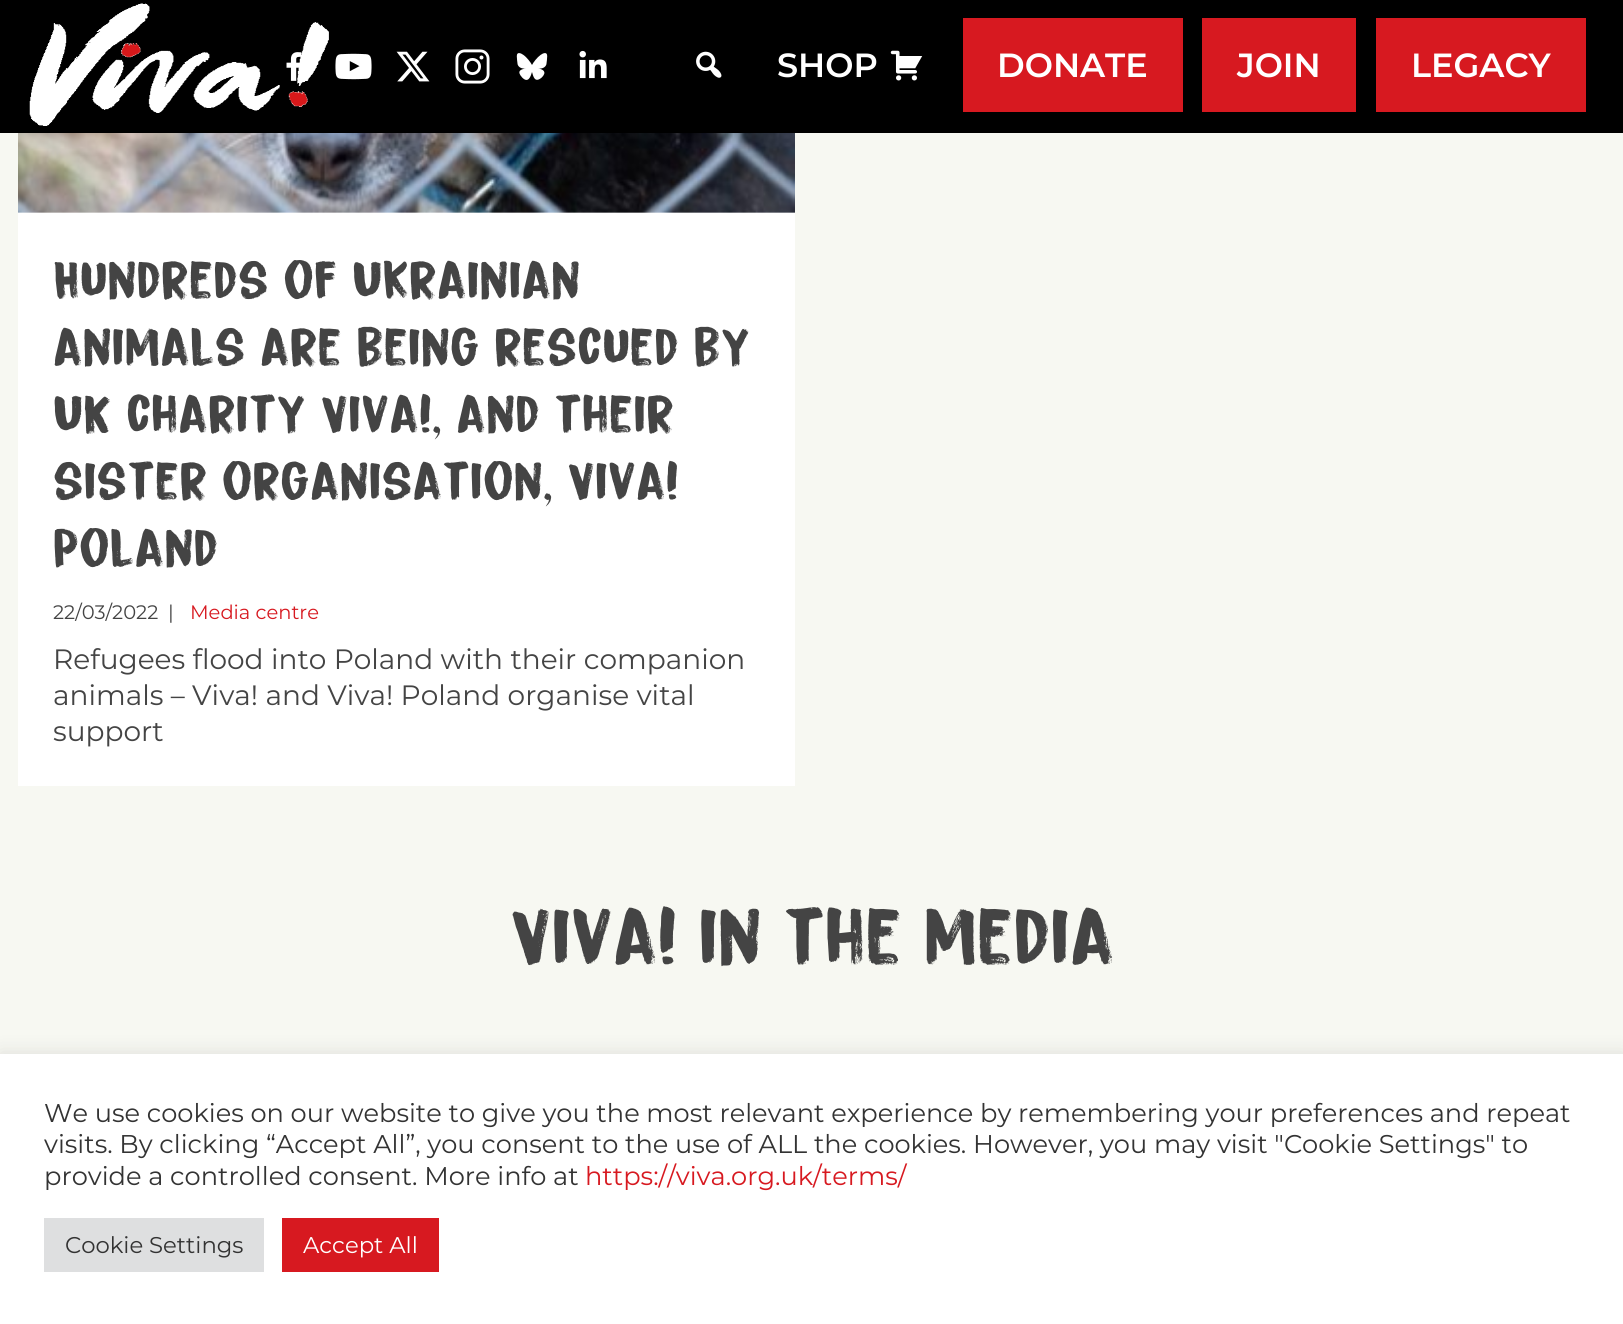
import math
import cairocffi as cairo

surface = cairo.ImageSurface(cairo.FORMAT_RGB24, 1623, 1324)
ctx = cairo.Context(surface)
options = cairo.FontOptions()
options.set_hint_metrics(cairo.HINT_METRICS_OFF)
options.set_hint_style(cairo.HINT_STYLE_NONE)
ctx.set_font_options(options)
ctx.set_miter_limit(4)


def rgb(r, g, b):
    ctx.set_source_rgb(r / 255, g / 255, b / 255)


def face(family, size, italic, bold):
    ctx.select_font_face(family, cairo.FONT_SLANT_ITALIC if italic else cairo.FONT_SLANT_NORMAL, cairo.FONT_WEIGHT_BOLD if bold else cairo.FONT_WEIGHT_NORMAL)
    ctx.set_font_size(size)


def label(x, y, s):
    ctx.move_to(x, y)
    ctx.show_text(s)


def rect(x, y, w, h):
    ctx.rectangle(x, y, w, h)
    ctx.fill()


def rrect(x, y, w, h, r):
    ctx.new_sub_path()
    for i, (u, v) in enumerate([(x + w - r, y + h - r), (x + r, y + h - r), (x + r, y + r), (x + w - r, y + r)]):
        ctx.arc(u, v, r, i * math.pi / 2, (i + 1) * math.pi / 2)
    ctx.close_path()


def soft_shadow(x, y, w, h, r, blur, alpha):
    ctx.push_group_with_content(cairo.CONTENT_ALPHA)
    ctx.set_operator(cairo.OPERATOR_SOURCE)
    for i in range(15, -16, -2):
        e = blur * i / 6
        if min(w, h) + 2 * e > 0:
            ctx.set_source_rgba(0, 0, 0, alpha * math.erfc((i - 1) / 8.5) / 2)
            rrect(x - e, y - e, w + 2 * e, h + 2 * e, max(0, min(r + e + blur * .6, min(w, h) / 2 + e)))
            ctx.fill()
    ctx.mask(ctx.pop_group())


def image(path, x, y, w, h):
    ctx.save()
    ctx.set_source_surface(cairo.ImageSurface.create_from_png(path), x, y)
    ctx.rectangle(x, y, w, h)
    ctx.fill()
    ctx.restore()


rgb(247, 248, 242)
ctx.paint()
rgb(0, 0, 0)
rect(0, 0, 1623, 133)
image('image1.png', 286, 52, 16, 29)
image('image0.png', 29, 3, 300, 123)
image('image2.png', 335, 53, 37, 27)
image('image3.png', 396, 51, 34, 31)
image('image4.png', 455, 49, 35, 35)
image('image5.png', 516, 53, 32, 27)
image('image6.png', 579, 50, 28, 29)
image('image7.png', 696, 51, 26, 27)
face('Montserrat SemiBold', 33.5, 0, 0)
rgb(255, 255, 255)
label(777, 77, 'SHOP')
image('image8.png', 890, 50, 33, 31)
rgb(215, 25, 32)
rect(963, 18, 220, 94)
rgb(255, 255, 255)
label(997, 77, 'DONATE')
rgb(215, 25, 32)
rect(1202, 18, 154, 94)
rgb(255, 255, 255)
label(1237, 77, 'JOIN')
rgb(215, 25, 32)
rect(1376, 18, 210, 94)
rgb(255, 255, 255)
label(1411, 77, 'LEGACY')
rect(18, 212, 777, 574)
image('image9.png', 18, 133, 777, 80)
face('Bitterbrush', 56, 0, 0)
rgb(68, 68, 68)
label(53, 299, 'Hundreds of Ukrainian')
label(53, 366, 'animals are being rescued by')
label(53, 433, 'UK charity Viva!, and their')
label(53, 500, 'sister organisation, Viva!')
label(53, 567, 'Poland')
face('Montserrat', 19.5, 0, 0)
label(53, 619, '22/03/2022')
label(168, 619, '|')
rgb(215, 25, 32)
label(190, 619, 'Media centre')
face('Montserrat', 28, 0, 0)
rgb(68, 68, 68)
label(53, 669, 'Refugees flood into Poland with their companion')
label(53, 705, 'animals – Viva! and Viva! Poland organise vital')
label(53, 741, 'support')
face('Bitterbrush', 84, 0, 0)
label(510, 965, 'Viva! in the media')
rgb(172, 171, 171)
soft_shadow(0, 1052, 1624, 271, 0, 9, 0.3)
rgb(255, 255, 255)
rect(0, 1054, 1623, 270)
face('Montserrat', 25.67, 0, 0)
rgb(51, 51, 51)
label(44, 1122, 'We use cookies on our website to give you the most relevant experience by remembering your preferences and repeat')
label(44, 1153, 'visits. By clicking “Accept All”, you consent to the use of ALL the cookies. However, you may visit "Cookie Settings" to')
label(44, 1185, 'provide a controlled consent. More info at')
rgb(215, 25, 32)
label(585, 1185, 'https://viva.org.uk/terms/')
rgb(222, 223, 224)
rect(44, 1218, 220, 54)
face('Montserrat', 22.75, 0, 0)
rgb(51, 51, 51)
label(65, 1253, 'Cookie Settings')
rgb(215, 25, 32)
rect(282, 1218, 157, 54)
rgb(255, 255, 255)
label(303, 1253, 'Accept All')
surface.write_to_png('render.png')
